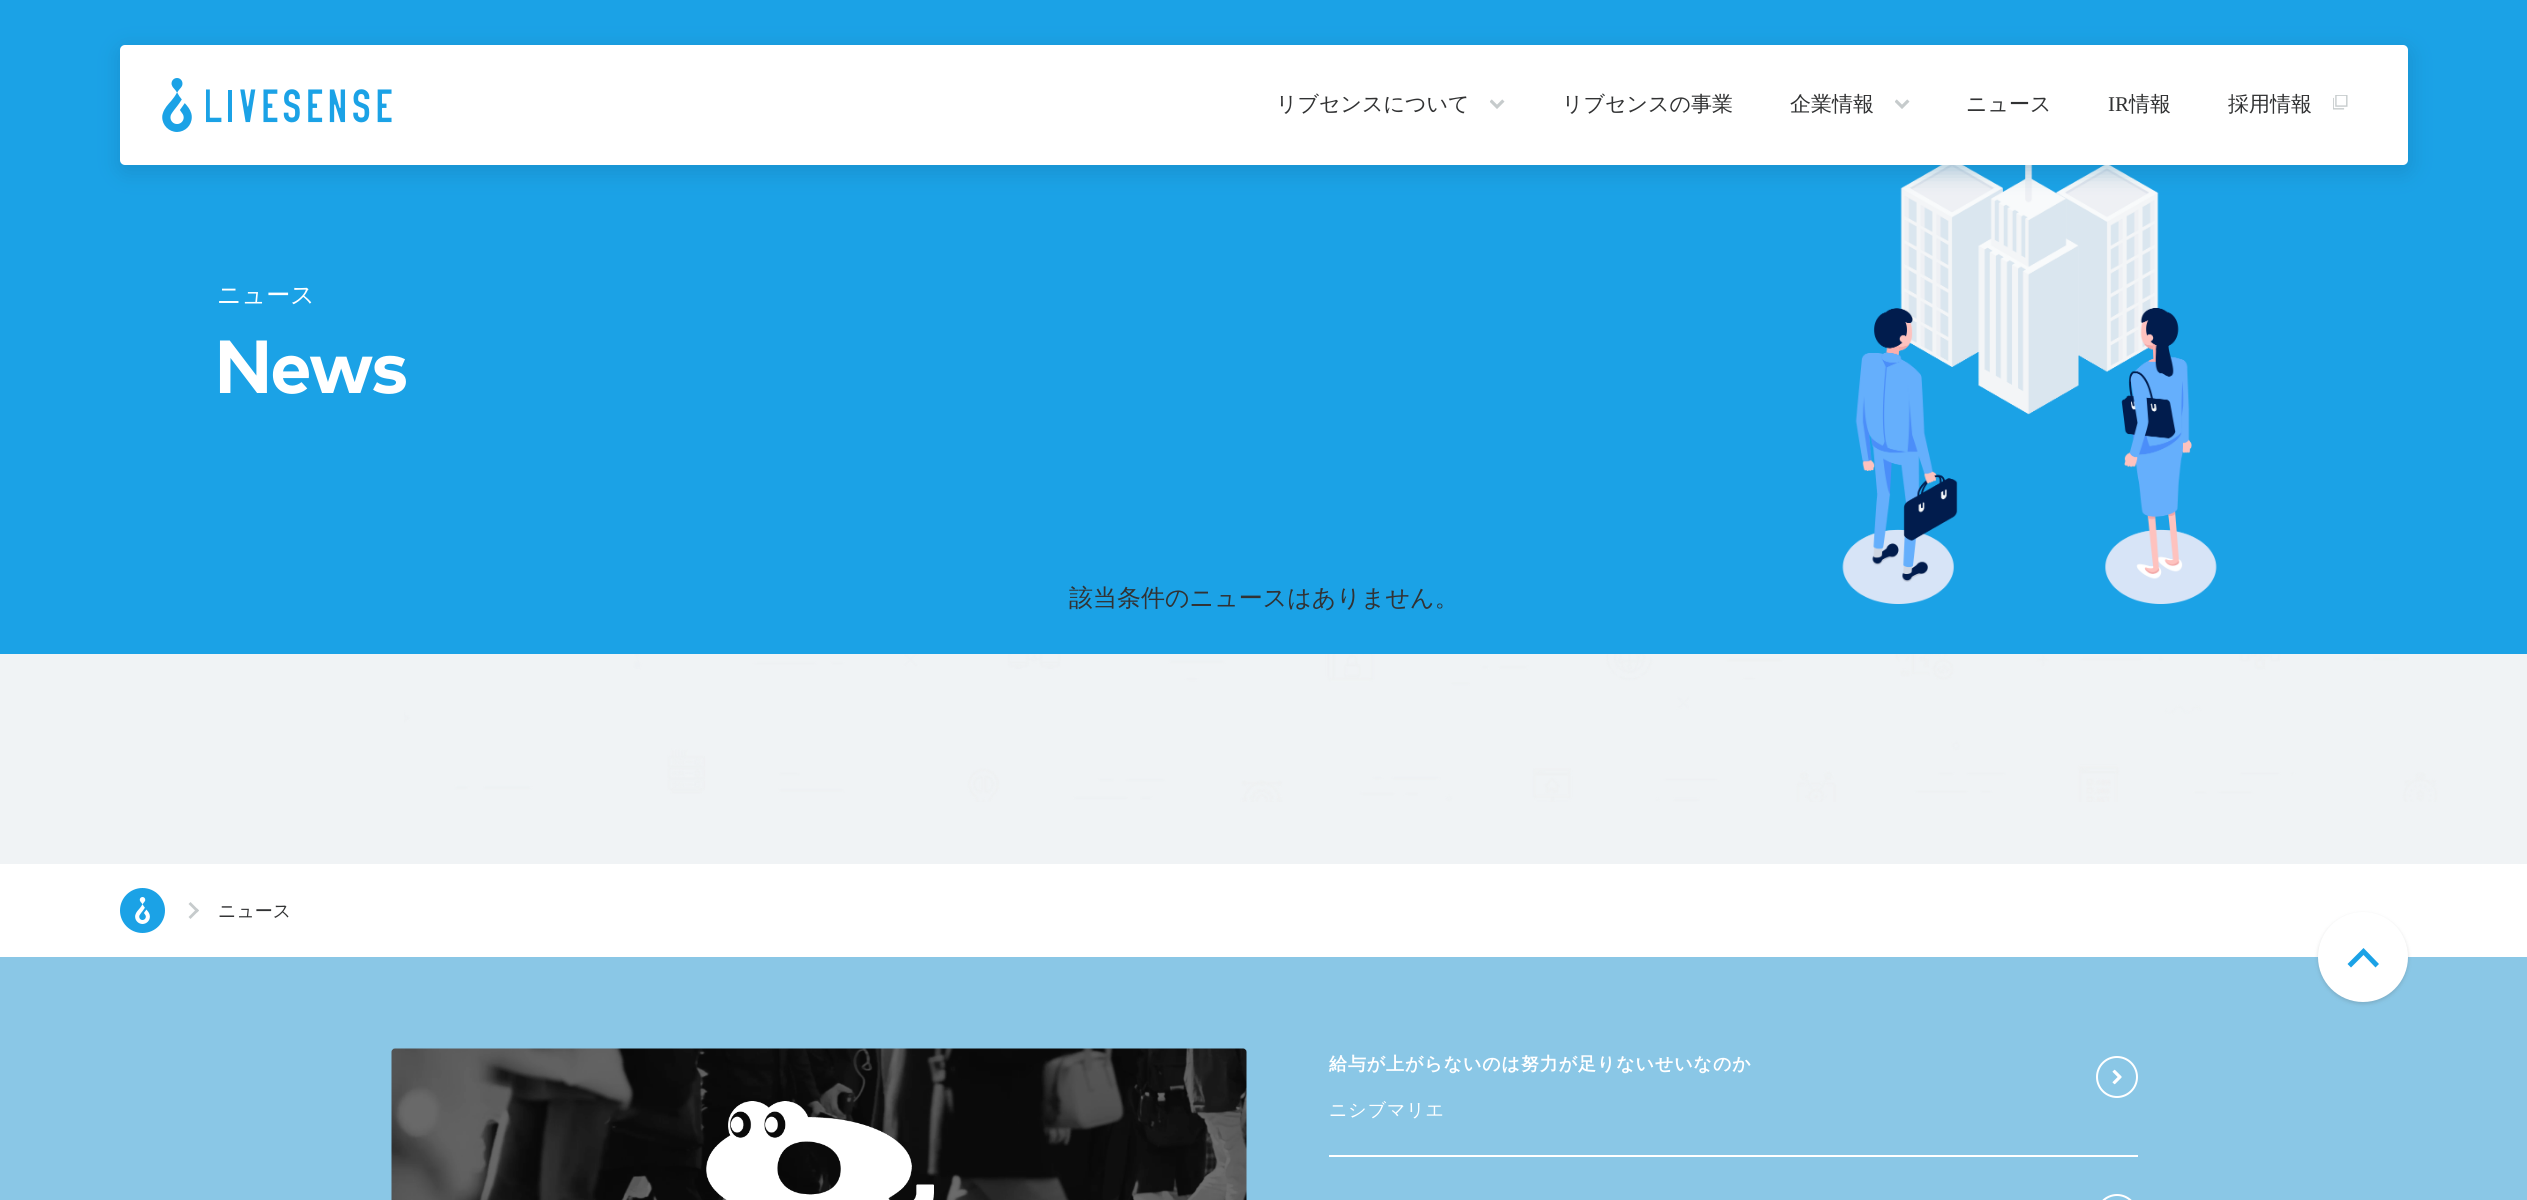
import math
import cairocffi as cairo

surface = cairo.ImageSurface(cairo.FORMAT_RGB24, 2527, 1200)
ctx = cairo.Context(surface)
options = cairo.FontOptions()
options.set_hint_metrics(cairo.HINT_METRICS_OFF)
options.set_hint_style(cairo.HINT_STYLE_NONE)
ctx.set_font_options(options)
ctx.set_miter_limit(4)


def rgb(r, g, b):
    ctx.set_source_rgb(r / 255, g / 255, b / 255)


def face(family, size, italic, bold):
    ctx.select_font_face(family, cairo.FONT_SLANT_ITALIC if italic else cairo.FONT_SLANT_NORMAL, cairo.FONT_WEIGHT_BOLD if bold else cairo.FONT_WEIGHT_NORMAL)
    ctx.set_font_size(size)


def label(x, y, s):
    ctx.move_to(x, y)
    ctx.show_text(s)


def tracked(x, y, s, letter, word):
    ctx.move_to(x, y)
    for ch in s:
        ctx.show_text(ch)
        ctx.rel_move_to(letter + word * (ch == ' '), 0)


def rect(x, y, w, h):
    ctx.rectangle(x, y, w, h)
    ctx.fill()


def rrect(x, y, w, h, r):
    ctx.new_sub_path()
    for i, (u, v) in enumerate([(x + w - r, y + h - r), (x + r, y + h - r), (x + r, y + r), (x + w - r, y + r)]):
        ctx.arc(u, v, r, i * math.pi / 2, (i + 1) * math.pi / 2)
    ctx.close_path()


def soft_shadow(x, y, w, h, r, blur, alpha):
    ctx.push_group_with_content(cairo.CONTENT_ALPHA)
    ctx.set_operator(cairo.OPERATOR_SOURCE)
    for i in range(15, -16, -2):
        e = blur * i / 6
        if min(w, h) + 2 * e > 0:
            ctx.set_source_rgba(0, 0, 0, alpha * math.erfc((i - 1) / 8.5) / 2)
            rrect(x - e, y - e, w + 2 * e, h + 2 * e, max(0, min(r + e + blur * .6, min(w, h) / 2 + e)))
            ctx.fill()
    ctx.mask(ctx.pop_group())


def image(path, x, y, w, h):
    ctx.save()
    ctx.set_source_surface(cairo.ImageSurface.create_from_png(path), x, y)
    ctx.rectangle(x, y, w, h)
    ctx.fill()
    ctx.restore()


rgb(240, 243, 245)
ctx.paint()
rgb(27, 162, 230)
rect(0, 0, 2527, 654)
image('image4.png', 1842, 165, 375, 439)
rgb(18, 108, 153)
soft_shadow(119, 48, 2292, 125, 8, 10, 0.3)
rgb(255, 255, 255)
rrect(120, 45, 2288, 120, 5)
ctx.fill()
image('image0.png', 162, 78, 30, 54)
image('image1.png', 206, 89, 186, 34)
face('WenQuanYi Zen Hei Medium', 21, 0, 0)
rgb(49, 50, 51)
label(1276, 111, 'リブセンスについて')
image('image2.png', 1490, 99, 15, 10)
label(1562, 111, 'リブセンスの事業')
label(1790, 111, '企業情報')
image('image2.png', 1895, 99, 15, 10)
label(1966, 111, 'ニュース')
face('Liberation Serif', 21, 0, 0)
label(2108, 111, 'IR')
face('WenQuanYi Zen Hei Medium', 21, 0, 0)
label(2129, 111, '情報')
label(2228, 111, '採用情報')
image('image3.png', 2333, 95, 15, 15)
face('WenQuanYi Zen Hei Medium', 24, 0, 0)
rgb(255, 255, 255)
label(217, 303, 'ニュース')
face('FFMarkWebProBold', 75, 0, 0)
tracked(214, 393, 'News', -3, 0)
face('WenQuanYi Zen Hei Medium', 24, 0, 0)
rgb(49, 50, 51)
label(1069, 606, '該当条件のニュースはありません。')
image('image5.png', 404, 654, 2034, 148)
rgb(255, 255, 255)
rect(0, 864, 2527, 93)
rgb(27, 162, 230)
ctx.arc(142.5, 910.5, 22.5, 0, 2 * math.pi)
ctx.fill()
image('image6.png', 135, 897, 15, 27)
rgb(198, 203, 204)
ctx.new_path()
ctx.move_to(190.5, 902)
ctx.line_to(199, 910.5)
ctx.line_to(197, 912.5)
ctx.line_to(188.5, 904)
ctx.close_path()
ctx.fill()
ctx.new_path()
ctx.move_to(197, 908.5)
ctx.line_to(199, 910.5)
ctx.line_to(190.5, 919)
ctx.line_to(188.5, 917)
ctx.close_path()
ctx.fill()
face('WenQuanYi Zen Hei Medium', 18, 0, 0)
rgb(49, 50, 51)
label(218, 917, 'ニュース')
rgb(138, 199, 230)
rect(0, 957, 2527, 243)
rgb(70, 72, 73)
soft_shadow(2318, 914, 90, 90, 45, 2, 0.2)
rgb(255, 255, 255)
ctx.arc(2363, 957, 45, 0, 2 * math.pi)
ctx.fill()
rgb(27, 162, 230)
ctx.new_path()
ctx.move_to(2375.5, 967.5)
ctx.line_to(2363.5, 955)
ctx.line_to(2351, 967.5)
ctx.line_to(2347.5, 964)
ctx.line_to(2363.5, 948)
ctx.line_to(2379, 964)
ctx.close_path()
ctx.fill()
image('image7.png', 391, 1048, 856, 152)
face('WenQuanYi Zen Hei', 18, 0, 1)
rgb(255, 255, 255)
tracked(1329, 1070, '給与が上がらないのは努力が足りないせいなのか', 0.9, 0)
face('WenQuanYi Zen Hei Medium', 18, 0, 0)
tracked(1329, 1116, 'ニシブマリエ', 0.9, 0)
ctx.new_path()
ctx.arc(2117, 1077, 20, 0, 2 * math.pi)
ctx.stroke()
image('image8.png', 2112, 1069, 10, 16)
rect(1329, 1155, 809, 2)
rrect(2097, 1195, 40, 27, 20)
ctx.stroke()
surface.write_to_png('render.png')
